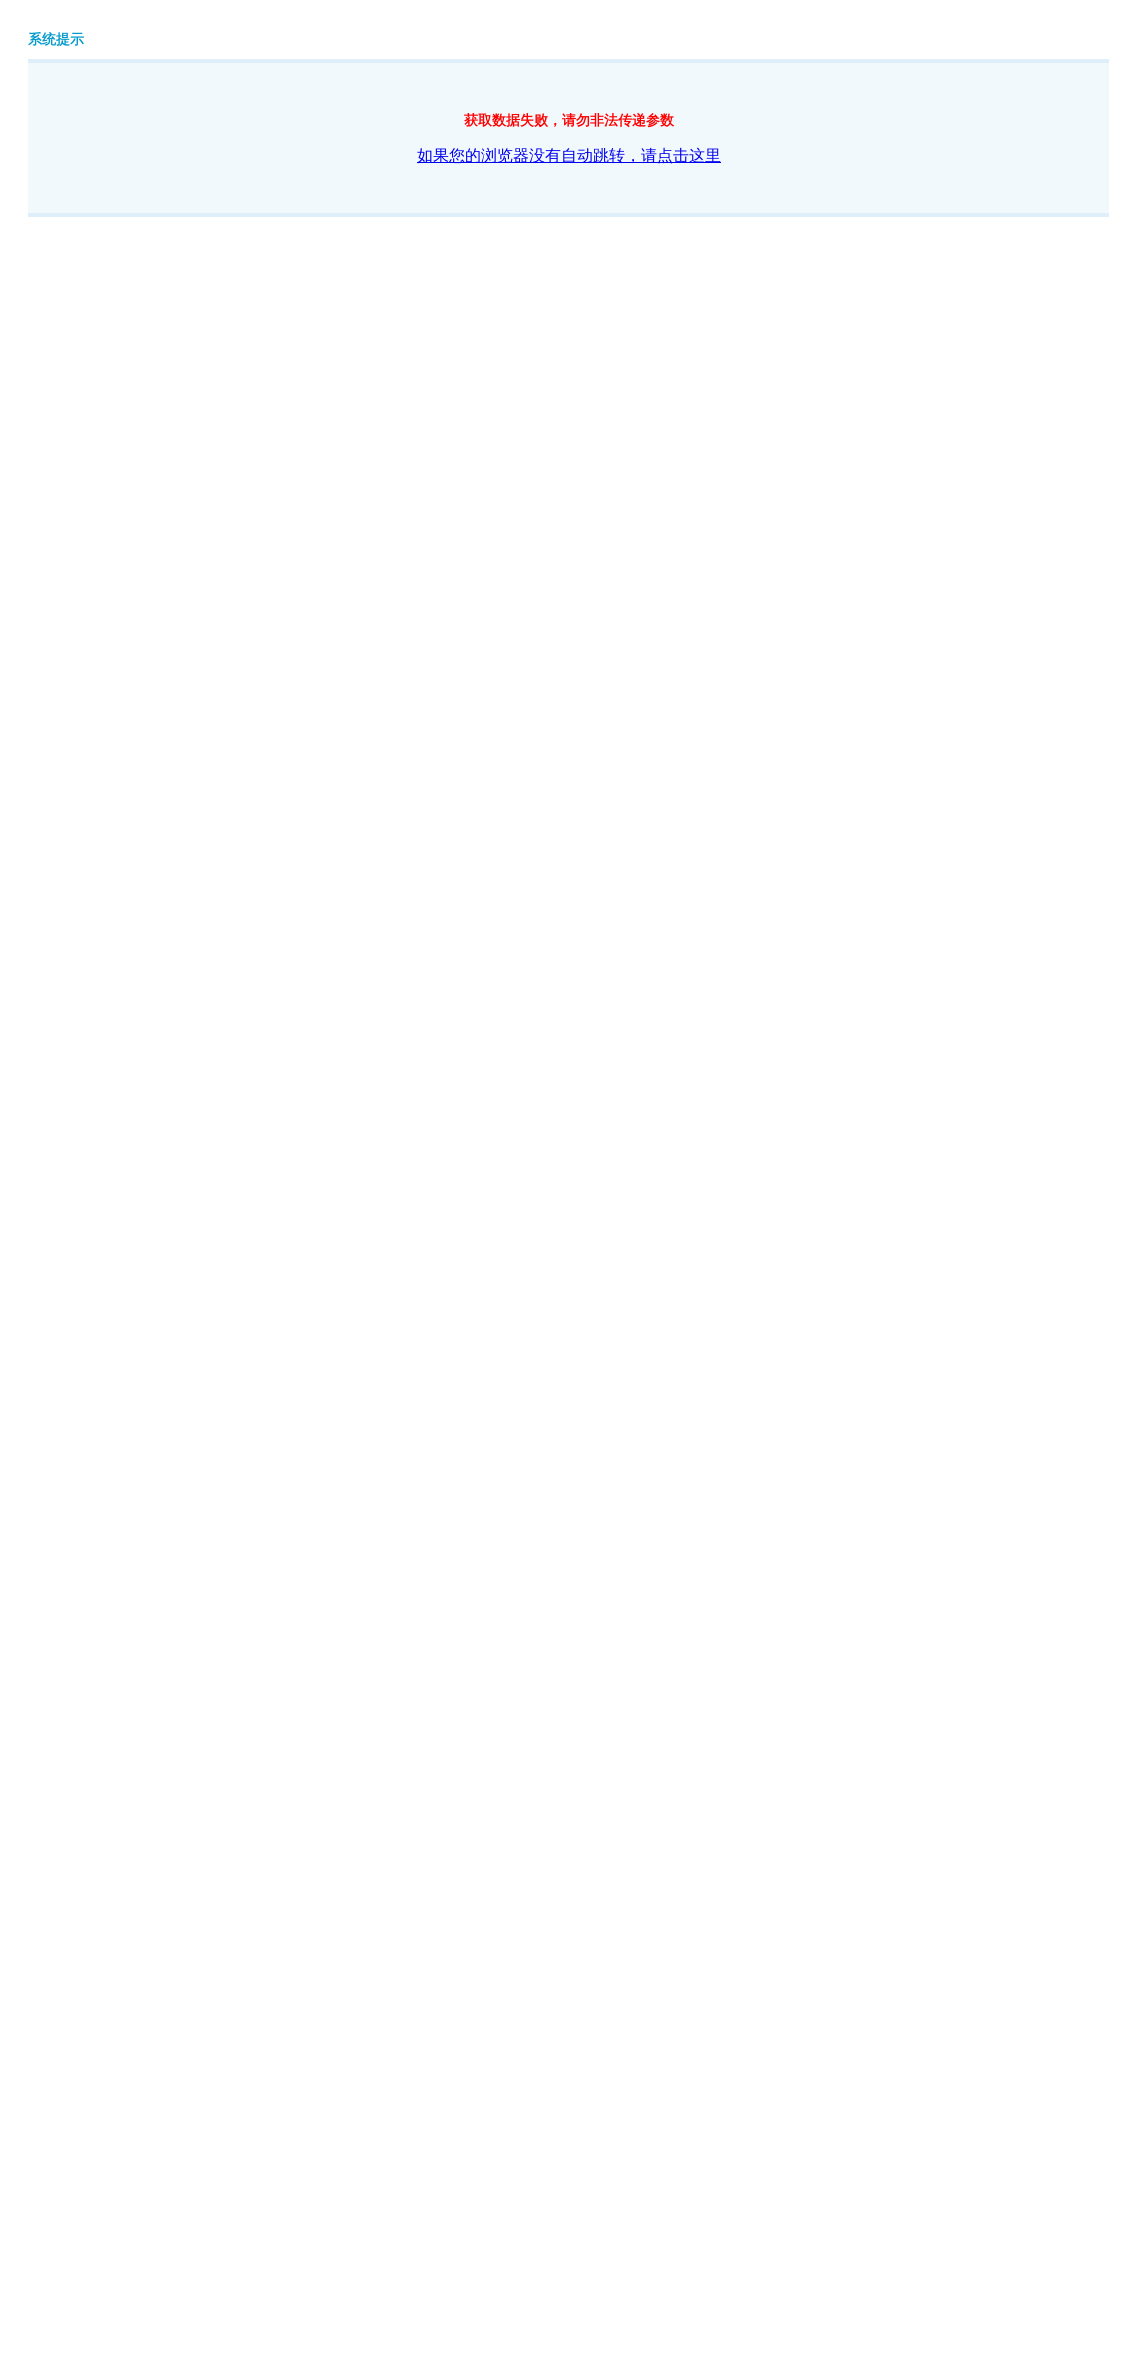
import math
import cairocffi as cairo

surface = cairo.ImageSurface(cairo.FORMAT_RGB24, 1137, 2380)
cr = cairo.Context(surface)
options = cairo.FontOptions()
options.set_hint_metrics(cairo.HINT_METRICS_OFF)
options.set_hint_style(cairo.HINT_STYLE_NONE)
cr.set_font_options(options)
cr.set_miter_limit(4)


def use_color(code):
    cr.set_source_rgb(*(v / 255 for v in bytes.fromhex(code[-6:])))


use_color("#ffffff")
cr.paint()
cr.select_font_face("WenQuanYi Zen Hei", cairo.FONT_SLANT_NORMAL, cairo.FONT_WEIGHT_BOLD)
cr.set_font_size(14)
use_color("#0099cc")
cr.move_to(28, 44)
cr.show_text("系统提示")
use_color("#f2f9fd")
cr.rectangle(28, 63, 1081, 150)
cr.fill()
use_color("#deeffa")
cr.rectangle(28, 59, 1081, 4)
cr.fill()
use_color("#deeefa")
cr.rectangle(28, 213, 1081, 4)
cr.fill()
use_color("#ff0000")
cr.move_to(464, 125)
cr.show_text("获取数据失败，请勿非法传递参数")
use_color("#0000ee")
cr.rectangle(417, 162, 304, 1)
cr.fill()
cr.select_font_face("WenQuanYi Zen Hei Medium")
cr.set_font_size(16)
cr.move_to(417, 161)
cr.show_text("如果您的浏览器没有自动跳转，请点击这里")
surface.write_to_png("result.png")
